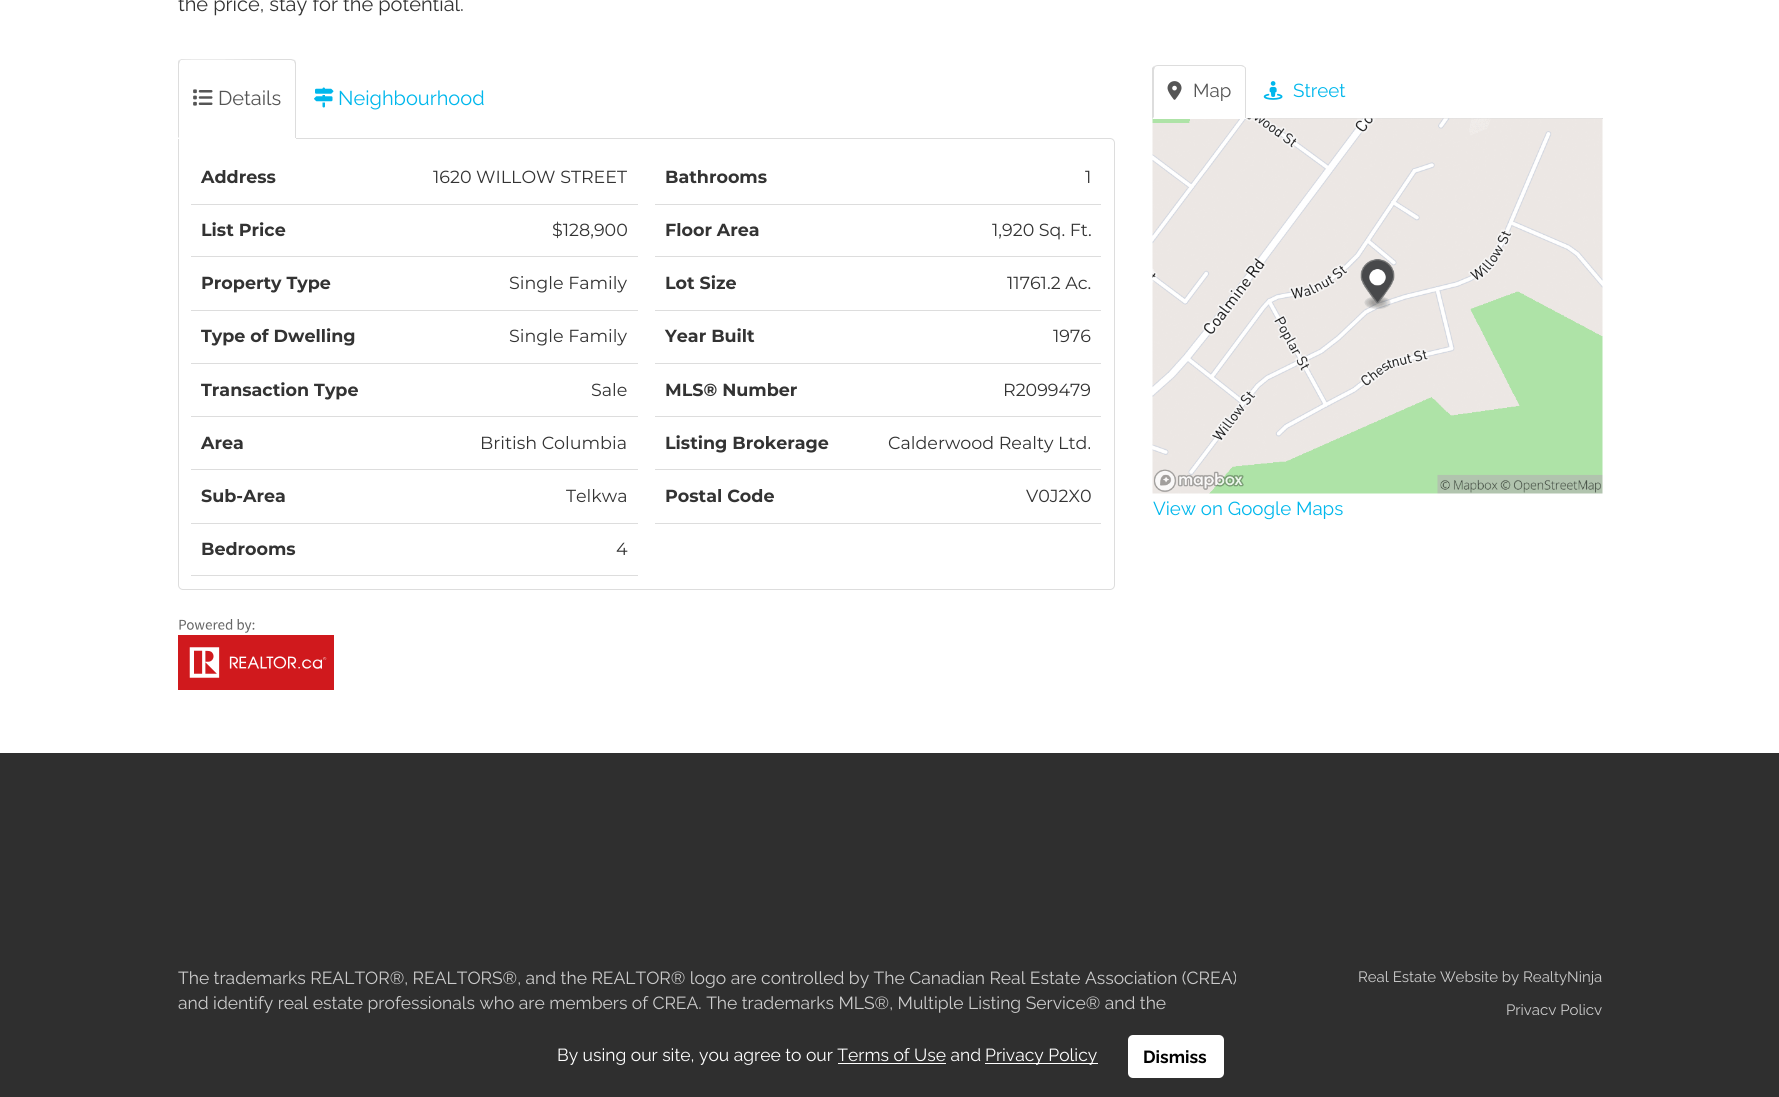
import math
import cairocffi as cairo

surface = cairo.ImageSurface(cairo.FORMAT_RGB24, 1779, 1097)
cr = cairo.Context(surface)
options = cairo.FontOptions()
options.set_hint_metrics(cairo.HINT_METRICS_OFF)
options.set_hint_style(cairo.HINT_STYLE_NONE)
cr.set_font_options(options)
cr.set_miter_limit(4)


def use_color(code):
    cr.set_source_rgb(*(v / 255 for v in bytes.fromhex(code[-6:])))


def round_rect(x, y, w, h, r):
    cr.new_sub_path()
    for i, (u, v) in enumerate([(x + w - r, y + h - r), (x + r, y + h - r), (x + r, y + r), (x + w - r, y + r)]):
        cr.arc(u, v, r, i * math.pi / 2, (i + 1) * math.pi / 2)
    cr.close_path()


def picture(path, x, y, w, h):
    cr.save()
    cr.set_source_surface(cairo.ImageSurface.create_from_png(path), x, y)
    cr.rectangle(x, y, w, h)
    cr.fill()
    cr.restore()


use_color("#ffffff")
cr.paint()
cr.select_font_face("Raleway")
cr.set_font_size(20)
use_color("#333333")
cr.move_to(178, 11)
cr.show_text("the price, stay for the potential.")
cr.new_path()
cr.move_to(178.5, 138.5)
cr.line_to(1110, 138.5)
cr.curve_to(1112.5, 138.5, 1114.5, 140.5, 1114.5, 143)
cr.line_to(1114.5, 585)
cr.curve_to(1114.5, 587.5, 1112.5, 589.5, 1110, 589.5)
cr.line_to(183, 589.5)
cr.curve_to(180.5, 589.5, 178.5, 587.5, 178.5, 585)
cr.close_path()
use_color("#dddddd")
cr.set_line_width(1)
cr.stroke()
use_color("#ffffff")
cr.new_path()
cr.move_to(183, 59)
cr.line_to(291, 59)
cr.curve_to(294, 59, 296, 61, 296, 64)
cr.line_to(296, 139)
cr.line_to(178, 139)
cr.line_to(178, 64)
cr.curve_to(178, 61, 180, 59, 183, 59)
cr.close_path()
cr.fill()
use_color("#dddddd")
cr.new_path()
cr.move_to(182, 59)
cr.curve_to(181, 59, 180, 60, 179, 60)
cr.line_to(180, 61)
cr.line_to(181, 60)
cr.curve_to(182, 59, 264, 60, 273, 60)
cr.line_to(291, 60)
cr.line_to(294, 61)
cr.line_to(295, 60)
cr.curve_to(294, 60, 292, 59, 291, 59)
cr.close_path()
cr.fill()
cr.new_path()
cr.move_to(296, 138)
cr.line_to(296, 63)
cr.line_to(295, 60)
cr.line_to(294, 61)
cr.line_to(295, 64)
cr.line_to(295, 138)
cr.close_path()
cr.fill()
cr.new_path()
cr.move_to(179, 60)
cr.curve_to(178, 61, 178, 63, 178, 64)
cr.line_to(178, 138)
cr.line_to(179, 137)
cr.line_to(179, 64)
cr.line_to(180, 61)
cr.close_path()
cr.fill()
picture("img1.png", 193, 89, 20, 17)
use_color("#555555")
cr.move_to(218, 105)
cr.show_text("Details")
picture("img2.png", 314, 87, 20, 21)
use_color("#00b7ec")
cr.move_to(338, 105)
cr.show_text("Neighbourhood")
use_color("#dddddd")
cr.rectangle(191, 204, 447, 1)
cr.fill()
cr.select_font_face("Montserrat", cairo.FONT_SLANT_NORMAL, cairo.FONT_WEIGHT_BOLD)
cr.set_font_size(17.5)
use_color("#333333")
cr.move_to(201, 183)
cr.show_text("Address")
cr.select_font_face("Montserrat Thin")
cr.move_to(433, 183)
cr.show_text("1620 WILLOW STREET")
use_color("#dddddd")
cr.rectangle(655, 204, 446, 1)
cr.fill()
cr.select_font_face("Montserrat", cairo.FONT_SLANT_NORMAL, cairo.FONT_WEIGHT_BOLD)
use_color("#333333")
cr.move_to(665, 183)
cr.show_text("Bathrooms")
cr.select_font_face("Montserrat Thin")
cr.move_to(1085, 183)
cr.show_text("1")
use_color("#dddddd")
cr.rectangle(191, 256, 447, 1)
cr.fill()
cr.select_font_face("Montserrat", cairo.FONT_SLANT_NORMAL, cairo.FONT_WEIGHT_BOLD)
use_color("#333333")
cr.move_to(201, 236)
cr.show_text("List Price")
cr.select_font_face("Montserrat Thin")
cr.move_to(552, 236)
cr.show_text("$128,900")
use_color("#dddddd")
cr.rectangle(655, 256, 446, 1)
cr.fill()
cr.select_font_face("Montserrat", cairo.FONT_SLANT_NORMAL, cairo.FONT_WEIGHT_BOLD)
use_color("#333333")
cr.move_to(665, 236)
cr.show_text("Floor Area")
cr.select_font_face("Montserrat Thin")
cr.move_to(992, 236)
cr.show_text("1,920 Sq. Ft.")
use_color("#dddddd")
cr.rectangle(191, 310, 447, 1)
cr.fill()
cr.select_font_face("Montserrat", cairo.FONT_SLANT_NORMAL, cairo.FONT_WEIGHT_BOLD)
use_color("#333333")
cr.move_to(201, 289)
cr.show_text("Property Type")
cr.select_font_face("Montserrat Thin")
cr.move_to(509, 289)
cr.show_text("Single Family")
use_color("#dddddd")
cr.rectangle(655, 310, 446, 1)
cr.fill()
cr.select_font_face("Montserrat", cairo.FONT_SLANT_NORMAL, cairo.FONT_WEIGHT_BOLD)
use_color("#333333")
cr.move_to(665, 289)
cr.show_text("Lot Size")
cr.select_font_face("Montserrat Thin")
cr.move_to(1007, 289)
cr.show_text("11761.2 Ac.")
use_color("#dddddd")
cr.rectangle(191, 363, 447, 1)
cr.fill()
cr.select_font_face("Montserrat", cairo.FONT_SLANT_NORMAL, cairo.FONT_WEIGHT_BOLD)
use_color("#333333")
cr.move_to(201, 342)
cr.show_text("Type of Dwelling")
cr.select_font_face("Montserrat Thin")
cr.move_to(509, 342)
cr.show_text("Single Family")
use_color("#dddddd")
cr.rectangle(655, 363, 446, 1)
cr.fill()
cr.select_font_face("Montserrat", cairo.FONT_SLANT_NORMAL, cairo.FONT_WEIGHT_BOLD)
use_color("#333333")
cr.move_to(665, 342)
cr.show_text("Year Built")
cr.select_font_face("Montserrat Thin")
cr.move_to(1053, 342)
cr.show_text("1976")
use_color("#dddddd")
cr.rectangle(191, 416, 447, 1)
cr.fill()
cr.select_font_face("Montserrat", cairo.FONT_SLANT_NORMAL, cairo.FONT_WEIGHT_BOLD)
use_color("#333333")
cr.move_to(201, 396)
cr.show_text("Transaction Type")
cr.select_font_face("Montserrat Thin")
cr.move_to(591, 396)
cr.show_text("Sale")
use_color("#dddddd")
cr.rectangle(655, 416, 446, 1)
cr.fill()
cr.select_font_face("Montserrat", cairo.FONT_SLANT_NORMAL, cairo.FONT_WEIGHT_BOLD)
use_color("#333333")
cr.move_to(665, 396)
cr.show_text("MLS® Number")
cr.select_font_face("Montserrat Thin")
cr.move_to(1003, 396)
cr.show_text("R2099479")
use_color("#dddddd")
cr.rectangle(191, 469, 447, 1)
cr.fill()
cr.select_font_face("Montserrat", cairo.FONT_SLANT_NORMAL, cairo.FONT_WEIGHT_BOLD)
use_color("#333333")
cr.move_to(201, 449)
cr.show_text("Area")
cr.select_font_face("Montserrat Thin")
cr.move_to(480, 449)
cr.show_text("British Columbia")
use_color("#dddddd")
cr.rectangle(655, 469, 446, 1)
cr.fill()
cr.select_font_face("Montserrat", cairo.FONT_SLANT_NORMAL, cairo.FONT_WEIGHT_BOLD)
use_color("#333333")
cr.move_to(665, 449)
cr.show_text("Listing Brokerage")
cr.select_font_face("Montserrat Thin")
cr.move_to(888, 449)
cr.show_text("Calderwood Realty Ltd.")
use_color("#dddddd")
cr.rectangle(191, 523, 447, 1)
cr.fill()
cr.select_font_face("Montserrat", cairo.FONT_SLANT_NORMAL, cairo.FONT_WEIGHT_BOLD)
use_color("#333333")
cr.move_to(201, 502)
cr.show_text("Sub-Area")
cr.select_font_face("Montserrat Thin")
cr.move_to(566, 502)
cr.show_text("Telkwa")
use_color("#dddddd")
cr.rectangle(655, 523, 446, 1)
cr.fill()
cr.select_font_face("Montserrat", cairo.FONT_SLANT_NORMAL, cairo.FONT_WEIGHT_BOLD)
use_color("#333333")
cr.move_to(665, 502)
cr.show_text("Postal Code")
cr.select_font_face("Montserrat Thin")
cr.move_to(1026, 502)
cr.show_text("V0J2X0")
use_color("#dddddd")
cr.rectangle(191, 575, 447, 1)
cr.fill()
cr.select_font_face("Montserrat", cairo.FONT_SLANT_NORMAL, cairo.FONT_WEIGHT_BOLD)
use_color("#333333")
cr.move_to(201, 555)
cr.show_text("Bedrooms")
cr.select_font_face("Montserrat Thin")
cr.move_to(616, 555)
cr.show_text("4")
picture("img3.png", 178, 619, 156, 71)
use_color("#dddddd")
cr.rectangle(1246, 118, 357, 1)
cr.fill()
picture("img6.png", 1152, 118, 451, 376)
use_color("#ffffff")
cr.new_path()
cr.move_to(1158, 65)
cr.line_to(1241, 65)
cr.curve_to(1244, 65, 1246, 67, 1246, 70)
cr.line_to(1246, 119)
cr.line_to(1153, 119)
cr.line_to(1153, 70)
cr.curve_to(1153, 67, 1155, 65, 1158, 65)
cr.close_path()
cr.fill()
use_color("#dddddd")
cr.new_path()
cr.move_to(1158, 65)
cr.curve_to(1156, 65, 1155, 66, 1154, 66)
cr.line_to(1155, 67)
cr.curve_to(1155, 67, 1156, 66, 1158, 66)
cr.line_to(1241, 66)
cr.curve_to(1242, 66, 1243, 67, 1244, 67)
cr.line_to(1245, 67)
cr.curve_to(1244, 66, 1243, 65, 1241, 65)
cr.close_path()
cr.fill()
cr.new_path()
cr.move_to(1245, 67)
cr.curve_to(1246, 67, 1246, 69, 1246, 70)
cr.line_to(1246, 118)
cr.line_to(1245, 118)
cr.line_to(1245, 70)
cr.curve_to(1245, 69, 1245, 68, 1244, 67)
cr.close_path()
cr.fill()
cr.new_path()
cr.move_to(1152, 119)
cr.line_to(1152, 68)
cr.line_to(1154, 66)
cr.line_to(1155, 67)
cr.line_to(1154, 70)
cr.line_to(1154, 117)
cr.close_path()
cr.fill()
picture("img4.png", 1167, 81, 15, 19)
cr.select_font_face("Raleway")
cr.set_font_size(18.75)
use_color("#555555")
cr.move_to(1193, 97)
cr.show_text("Map")
picture("img5.png", 1263, 81, 20, 19)
use_color("#00b7ec")
cr.move_to(1293, 97)
cr.show_text("Street")
cr.move_to(1153, 515)
cr.show_text("View on Google Maps")
use_color("#2f2f2f")
cr.rectangle(0, 753, 1779, 262)
cr.fill()
cr.set_font_size(17.5)
use_color("#cccccc")
cr.move_to(178, 984)
cr.show_text("The trademarks REALTOR®, REALTORS®, and the REALTOR® logo are controlled by The Canadian Real Estate Association (CREA)")
cr.move_to(178, 1009)
cr.show_text("and identify real estate professionals who are members of CREA. The trademarks MLS®, Multiple Listing Service® and the")
cr.set_font_size(15)
cr.move_to(1358, 982)
cr.show_text("Real Estate Website by RealtyNinja")
cr.move_to(1506, 1015)
cr.show_text("Privacy Policy")
use_color("#2f2f2f")
cr.rectangle(0, 1015, 1779, 82)
cr.fill()
cr.set_font_size(17.5)
use_color("#ffffff")
cr.move_to(557, 1061)
cr.show_text("By using our site, you agree to our Terms of Use and")
cr.rectangle(985, 1063, 113, 1)
cr.fill()
cr.move_to(985, 1061)
cr.show_text("Privacy Policy")
round_rect(1128, 1035, 96, 43, 5)
cr.fill()
cr.select_font_face("Raleway", cairo.FONT_SLANT_NORMAL, cairo.FONT_WEIGHT_BOLD)
use_color("#000000")
cr.move_to(1143, 1063)
cr.show_text("Dismiss")
use_color("#ffffff")
cr.rectangle(838, 1063, 108, 1)
cr.fill()
surface.write_to_png("result.png")
